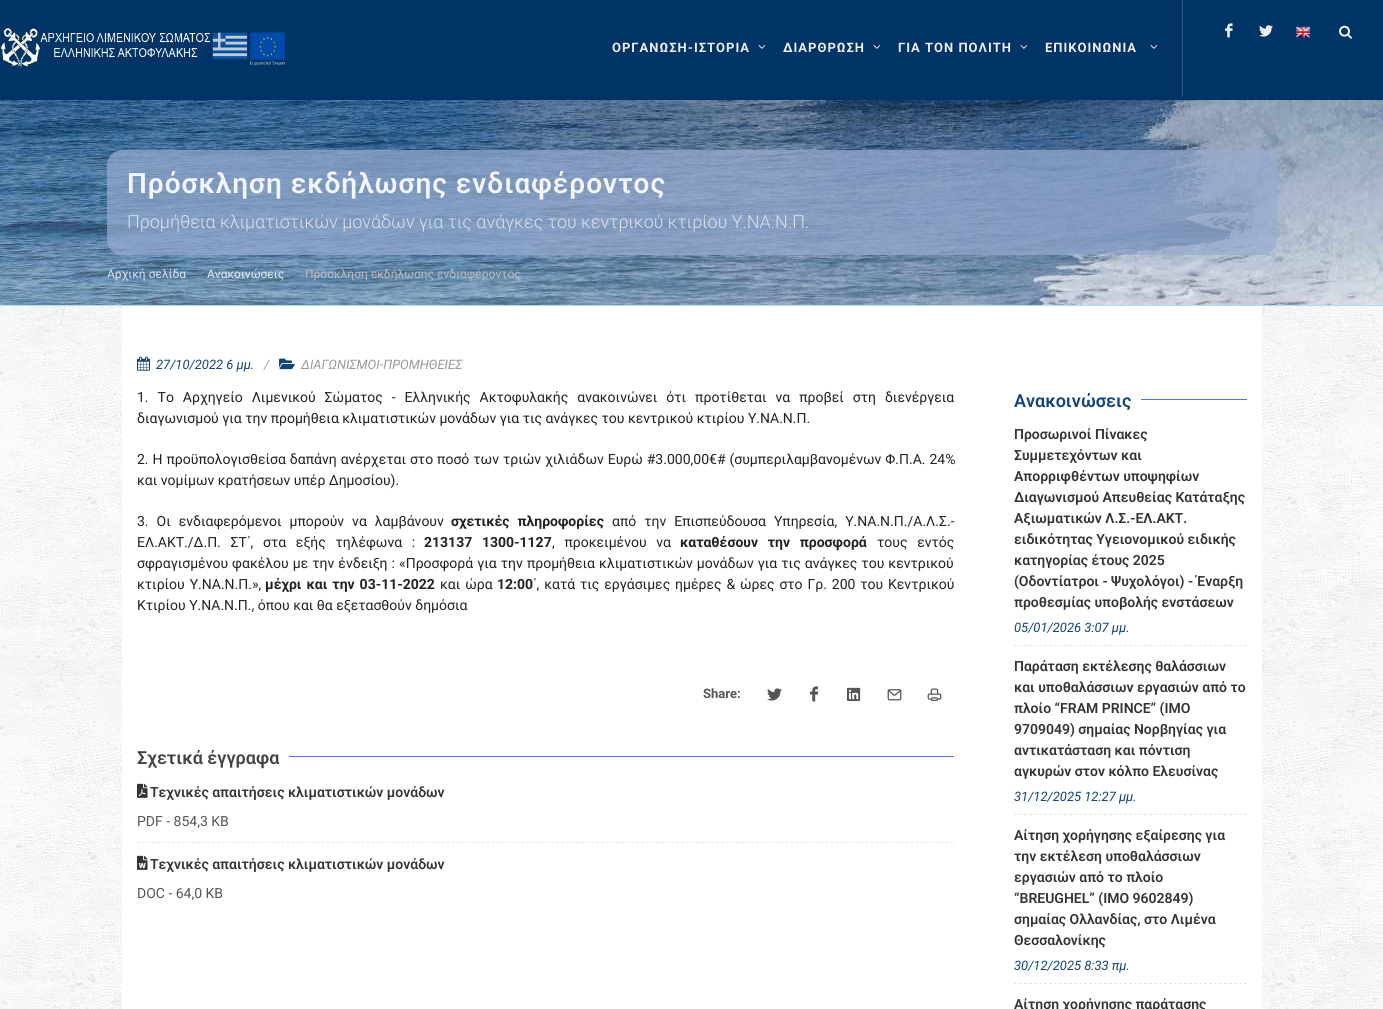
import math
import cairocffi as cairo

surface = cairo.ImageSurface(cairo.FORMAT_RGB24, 1383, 1009)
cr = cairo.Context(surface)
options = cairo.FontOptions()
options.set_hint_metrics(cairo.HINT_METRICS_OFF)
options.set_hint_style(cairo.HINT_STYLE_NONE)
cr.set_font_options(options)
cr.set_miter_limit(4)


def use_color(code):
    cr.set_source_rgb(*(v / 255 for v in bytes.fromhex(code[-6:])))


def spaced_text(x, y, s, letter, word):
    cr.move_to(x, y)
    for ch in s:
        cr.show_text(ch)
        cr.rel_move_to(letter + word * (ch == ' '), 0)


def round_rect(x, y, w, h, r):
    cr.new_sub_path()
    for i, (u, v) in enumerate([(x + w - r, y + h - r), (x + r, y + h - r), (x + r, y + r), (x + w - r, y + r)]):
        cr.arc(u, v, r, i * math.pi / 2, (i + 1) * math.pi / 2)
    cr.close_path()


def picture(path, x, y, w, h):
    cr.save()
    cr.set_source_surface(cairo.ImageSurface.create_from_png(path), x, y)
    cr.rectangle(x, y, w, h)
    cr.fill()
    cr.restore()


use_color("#ffffff")
cr.paint()
picture("img1.png", 0, 306, 1383, 703)
use_color("#003366")
cr.rectangle(0, 0, 1383, 100)
cr.fill()
picture("img2.png", 1, 28, 284, 41)
picture("img3.png", 1225, 23, 8, 15)
picture("img4.png", 1259, 25, 14, 12)
picture("img5.png", 1295, 26, 16, 12)
picture("img6.png", 1339, 25, 13, 14)
use_color("#335c85")
cr.rectangle(1182, 0, 1, 96)
cr.fill()
cr.select_font_face("Roboto", cairo.FONT_SLANT_NORMAL, cairo.FONT_WEIGHT_BOLD)
cr.set_font_size(13)
use_color("#eeeeee")
spaced_text(612, 52, "ΟΡΓΑΝΩΣΗ-ΙΣΤΟΡΙΑ", 1, 0)
picture("img7.png", 758, 45, 8, 4)
spaced_text(783, 52, "ΔΙΑΡΘΡΩΣΗ", 1, 0)
picture("img7.png", 873, 45, 8, 4)
spaced_text(898, 52, "ΓΙΑ ΤΟΝ ΠΟΛΙΤΗ", 1, 0)
picture("img7.png", 1020, 45, 8, 4)
spaced_text(1045, 52, "ΕΠΙΚΟΙΝΩΝΙΑ", 1, 0)
picture("img7.png", 1150, 45, 8, 4)
picture("img8.png", 0, 100, 1383, 205)
use_color("#aaddf8")
cr.rectangle(0, 305, 1383, 1)
cr.fill()
cr.set_source_rgba(0.596, 0.671, 0.816, 0.7)
round_rect(107, 150, 1170, 105, 15)
cr.fill()
cr.select_font_face("Roboto SemiBold")
cr.set_font_size(28)
use_color("#f2f5f9")
spaced_text(127, 193, "Πρόσκληση εκδήλωσης ενδιαφέροντος", 1, 0)
cr.select_font_face("Roboto Light")
cr.set_font_size(18)
use_color("#dae1ec")
cr.move_to(127, 228)
cr.show_text("Προμήθεια κλιματιστικών μονάδων για τις ανάγκες του κεντρικού κτιρίου Υ.ΝΑ.Ν.Π.")
cr.select_font_face("Roboto")
cr.set_font_size(12)
cr.move_to(107, 278)
cr.show_text("Αρχική σελίδα")
use_color("#e0e8ee")
cr.move_to(207, 278)
cr.show_text("Ανακοινώσεις")
use_color("#bbbbbb")
cr.move_to(305, 278)
cr.show_text("Πρόσκληση εκδήλωσης ενδιαφέροντος")
use_color("#ffffff")
cr.rectangle(122, 306, 1140, 703)
cr.fill()
picture("img9.png", 137, 356, 13, 15)
cr.select_font_face("Roboto", cairo.FONT_SLANT_ITALIC)
cr.set_font_size(13)
use_color("#114477")
cr.move_to(156, 369)
cr.show_text("27/10/2022 6 μμ.")
use_color("#88a2bb")
cr.move_to(264, 369)
cr.show_text("/")
picture("img10.png", 279, 358, 16, 12)
use_color("#999999")
cr.move_to(301, 369)
cr.show_text("ΔΙΑΓΩΝΙΣΜΟΙ-ΠΡΟΜΗΘΕΙΕΣ")
cr.select_font_face("Roboto")
cr.set_font_size(14)
use_color("#222222")
spaced_text(137, 402, "1. Το Αρχηγείο Λιμενικού Σώματος - Ελληνικής Ακτοφυλακής ανακοινώνει ότι προτίθεται να προβεί στη διενέργεια", 0, 5.5)
cr.move_to(137, 423)
cr.show_text("διαγωνισμού για την προμήθεια κλιματιστικών μονάδων για τις ανάγκες του κεντρικού κτιρίου Υ.ΝΑ.Ν.Π.")
spaced_text(137, 464, "2. Η προϋπολογισθείσα δαπάνη ανέρχεται στο ποσό των τριών χιλιάδων Ευρώ #3.000,00€# (συμπεριλαμβανομένων Φ.Π.Α. 24%", 0, 0.5)
cr.move_to(137, 485)
cr.show_text("και νομίμων κρατήσεων υπέρ Δημοσίου).")
spaced_text(137, 526, "3. Οι ενδιαφερόμενοι μπορούν να λαμβάνουν", 0, 4.5)
cr.select_font_face("Roboto", cairo.FONT_SLANT_NORMAL, cairo.FONT_WEIGHT_BOLD)
spaced_text(451, 526, "σχετικές πληροφορίες", 0, 4.5)
cr.select_font_face("Roboto")
spaced_text(612, 526, "από την Επισπεύδουσα Υπηρεσία, Υ.ΝΑ.Ν.Π./Α.Λ.Σ.-", 0, 4.5)
spaced_text(137, 547, "ΕΛ.ΑΚΤ./Δ.Π. ΣΤ΄, στα εξής τηλέφωνα :", 0, 6.25)
cr.select_font_face("Roboto", cairo.FONT_SLANT_NORMAL, cairo.FONT_WEIGHT_BOLD)
spaced_text(424, 547, "213137 1300-1127", 0, 6.25)
cr.select_font_face("Roboto")
spaced_text(552, 547, ", προκειμένου να", 0, 6.25)
cr.select_font_face("Roboto", cairo.FONT_SLANT_NORMAL, cairo.FONT_WEIGHT_BOLD)
spaced_text(680, 547, "καταθέσουν την προσφορά", 0, 6.25)
cr.select_font_face("Roboto")
spaced_text(877, 547, "τους εντός", 0, 6.25)
spaced_text(137, 568, "σφραγισμένου φακέλου με την ένδειξη : «Προσφορά για την προμήθεια κλιματιστικών μονάδων για τις ανάγκες του κεντρικού", 0, 0.6)
spaced_text(137, 589, "κτιρίου Υ.ΝΑ.Ν.Π.»,", 0, 1.5)
cr.select_font_face("Roboto", cairo.FONT_SLANT_NORMAL, cairo.FONT_WEIGHT_BOLD)
spaced_text(265, 589, "μέχρι και την 03-11-2022", 0, 1.5)
cr.select_font_face("Roboto")
spaced_text(440, 589, "και ώρα", 0, 1.5)
cr.select_font_face("Roboto", cairo.FONT_SLANT_NORMAL, cairo.FONT_WEIGHT_BOLD)
cr.move_to(497, 589)
cr.show_text("12:00")
cr.select_font_face("Roboto")
spaced_text(533, 589, "΄, κατά τις εργάσιμες ημέρες & ώρες στο Γρ. 200 του Κεντρικού", 0, 1.4)
cr.move_to(137, 610)
cr.show_text("Κτιρίου Υ.ΝΑ.Ν.Π., όπου και θα εξετασθούν δημόσια")
cr.select_font_face("Roboto", cairo.FONT_SLANT_NORMAL, cairo.FONT_WEIGHT_BOLD)
cr.set_font_size(13)
use_color("#555555")
cr.move_to(703, 698)
cr.show_text("Share:")
picture("img11.png", 767, 688, 15, 13)
picture("img12.png", 810, 686, 9, 16)
picture("img13.png", 847, 687, 14, 14)
picture("img14.png", 887, 689, 15, 12)
picture("img15.png", 927, 688, 15, 13)
cr.select_font_face("Roboto SemiBold")
cr.set_font_size(18)
use_color("#444444")
cr.move_to(137, 764)
cr.show_text("Σχετικά έγγραφα")
use_color("#5271f1")
cr.rectangle(289, 756, 665, 1)
cr.fill()
picture("img16.png", 137, 783, 11, 15)
cr.set_font_size(14)
use_color("#333333")
cr.move_to(150, 797)
cr.show_text("Τεχνικές απαιτήσεις κλιματιστικών μονάδων")
cr.select_font_face("Roboto")
use_color("#555555")
cr.move_to(137, 826)
cr.show_text("PDF - 854,3 KB")
cr.new_path()
cr.move_to(137, 842.5)
cr.line_to(954, 842.5)
use_color("#e5e5e5")
cr.set_line_width(1)
cr.set_dash([3, 1.99])
cr.stroke()
picture("img17.png", 137, 855, 11, 15)
cr.select_font_face("Roboto SemiBold")
use_color("#333333")
cr.move_to(150, 869)
cr.show_text("Τεχνικές απαιτήσεις κλιματιστικών μονάδων")
cr.select_font_face("Roboto")
use_color("#555555")
cr.move_to(137, 898)
cr.show_text("DOC - 64,0 KB")
cr.select_font_face("Roboto SemiBold")
cr.set_font_size(18)
use_color("#114477")
cr.move_to(1014, 407)
cr.show_text("Ανακοινώσεις")
use_color("#5271f1")
cr.rectangle(1141, 399, 106, 1)
cr.fill()
cr.set_font_size(14)
use_color("#333333")
cr.move_to(1014, 439)
cr.show_text("Προσωρινοί Πίνακες")
cr.move_to(1014, 460)
cr.show_text("Συμμετεχόντων και")
cr.move_to(1014, 481)
cr.show_text("Απορριφθέντων υποψηφίων")
cr.move_to(1014, 502)
cr.show_text("Διαγωνισμού Απευθείας Κατάταξης")
cr.move_to(1014, 523)
cr.show_text("Αξιωματικών Λ.Σ.-ΕΛ.ΑΚΤ.")
cr.move_to(1014, 544)
cr.show_text("ειδικότητας Υγειονομικού ειδικής")
cr.move_to(1014, 565)
cr.show_text("κατηγορίας έτους 2025")
cr.move_to(1014, 586)
cr.show_text("(Οδοντίατροι - Ψυχολόγοι) - Έναρξη")
cr.move_to(1014, 607)
cr.show_text("προθεσμίας υποβολής ενστάσεων")
cr.select_font_face("Roboto", cairo.FONT_SLANT_ITALIC)
cr.set_font_size(13)
use_color("#114477")
cr.move_to(1014, 632)
cr.show_text("05/01/2026 3:07 μμ.")
cr.new_path()
cr.move_to(1014, 645.5)
cr.line_to(1247, 645.5)
use_color("#e5e5e5")
cr.set_dash([3, 2])
cr.stroke()
cr.select_font_face("Roboto SemiBold")
cr.set_font_size(14)
use_color("#333333")
cr.move_to(1014, 671)
cr.show_text("Παράταση εκτέλεσης θαλάσσιων")
cr.move_to(1014, 692)
cr.show_text("και υποθαλάσσιων εργασιών από το")
cr.move_to(1014, 713)
cr.show_text("πλοίο “FRAM PRINCE” (IMO")
cr.move_to(1014, 734)
cr.show_text("9709049) σημαίας Νορβηγίας για")
cr.move_to(1014, 755)
cr.show_text("αντικατάσταση και πόντιση")
cr.move_to(1014, 776)
cr.show_text("αγκυρών στον κόλπο Ελευσίνας")
cr.select_font_face("Roboto", cairo.FONT_SLANT_ITALIC)
cr.set_font_size(13)
use_color("#114477")
cr.move_to(1014, 801)
cr.show_text("31/12/2025 12:27 μμ.")
cr.new_path()
cr.move_to(1014, 814.5)
cr.line_to(1247, 814.5)
use_color("#e5e5e5")
cr.stroke()
cr.select_font_face("Roboto SemiBold")
cr.set_font_size(14)
use_color("#333333")
cr.move_to(1014, 840)
cr.show_text("Αίτηση χορήγησης εξαίρεσης για")
cr.move_to(1014, 861)
cr.show_text("την εκτέλεση υποθαλάσσιων")
cr.move_to(1014, 882)
cr.show_text("εργασιών από το πλοίο")
cr.move_to(1014, 903)
cr.show_text("“BREUGHEL” (IMO 9602849)")
cr.move_to(1014, 924)
cr.show_text("σημαίας Ολλανδίας, στο Λιμένα")
cr.move_to(1014, 945)
cr.show_text("Θεσσαλονίκης")
cr.select_font_face("Roboto", cairo.FONT_SLANT_ITALIC)
cr.set_font_size(13)
use_color("#114477")
cr.move_to(1014, 970)
cr.show_text("30/12/2025 8:33 πμ.")
cr.new_path()
cr.move_to(1014, 983.5)
cr.line_to(1247, 983.5)
use_color("#e5e5e5")
cr.stroke()
cr.select_font_face("Roboto SemiBold")
cr.set_font_size(14)
use_color("#333333")
cr.move_to(1014, 1009)
cr.show_text("Αίτηση χορήγησης παράτασης")
surface.write_to_png("result.png")
